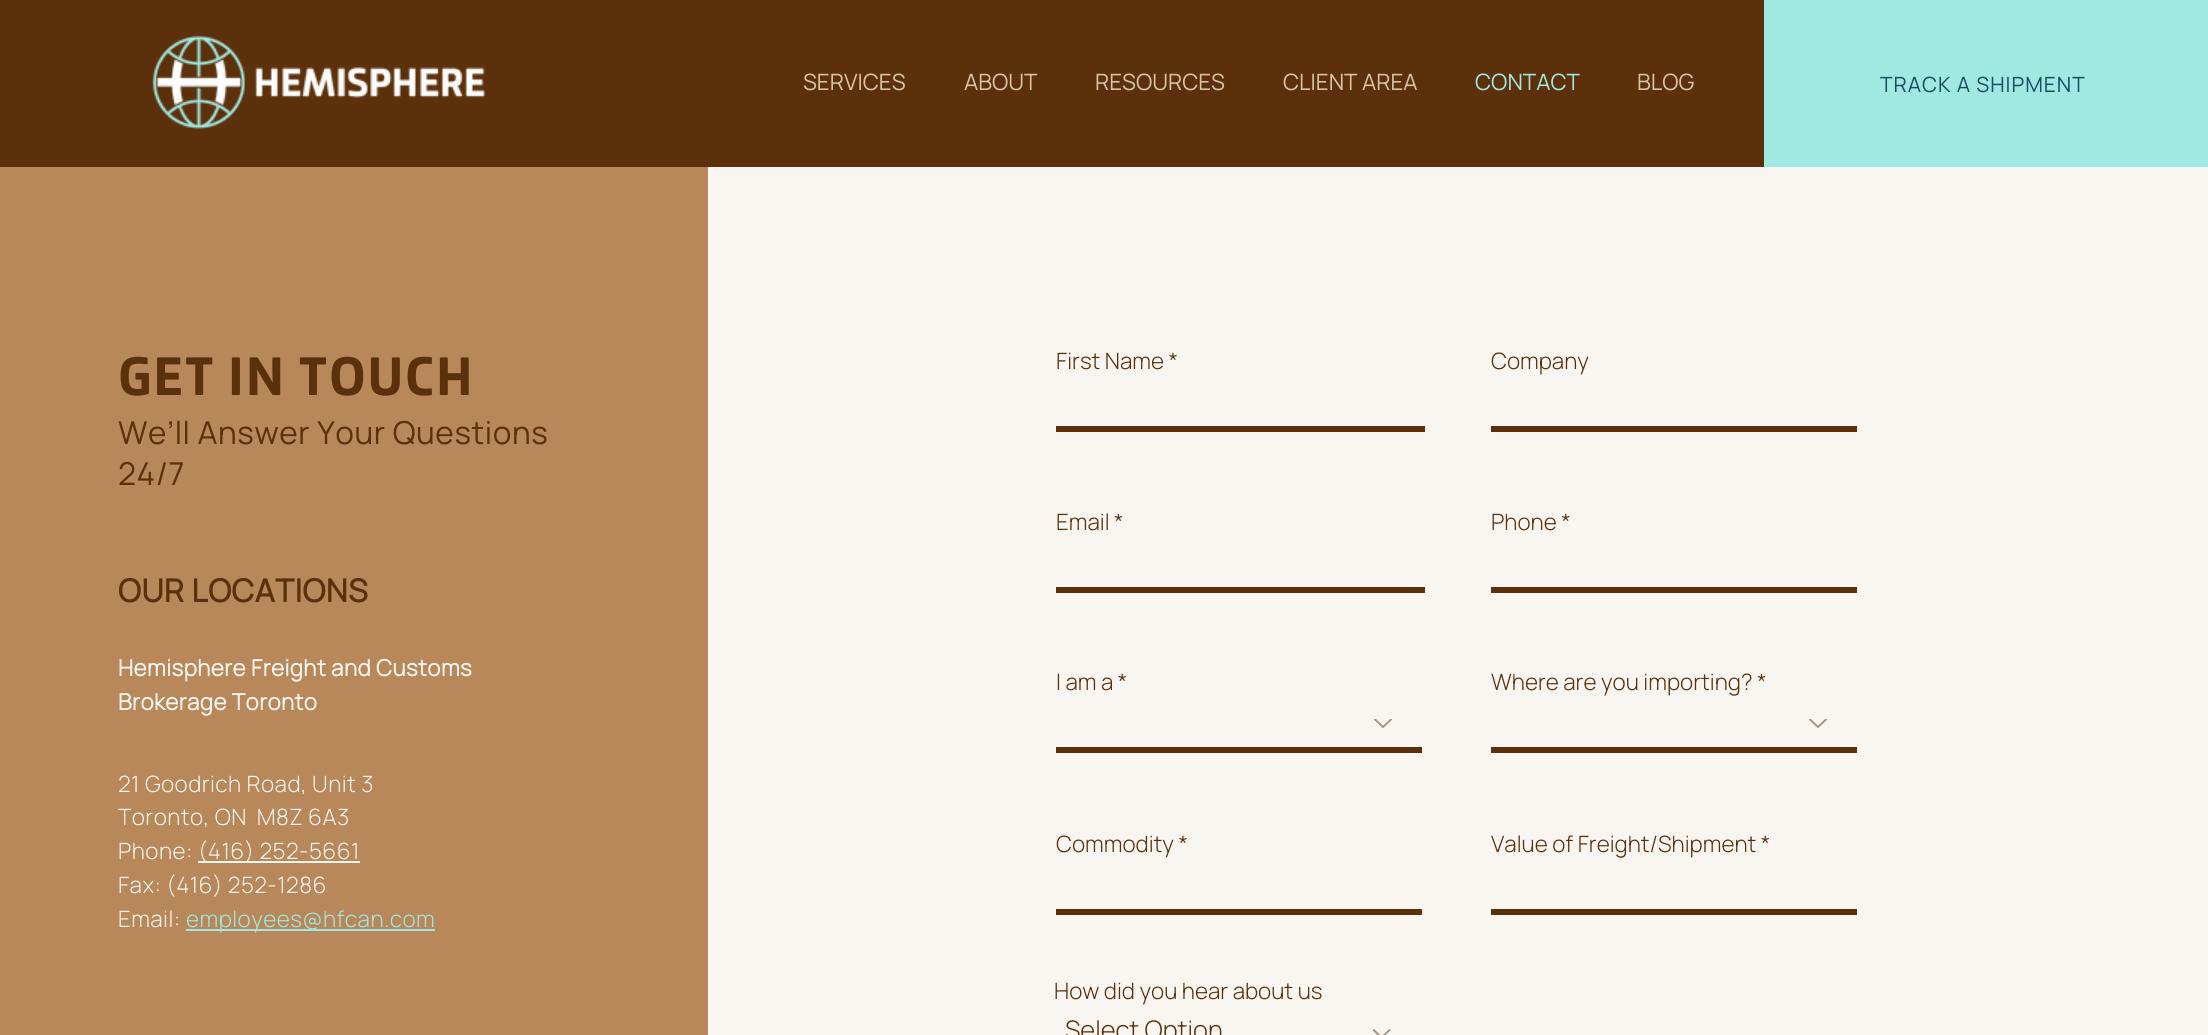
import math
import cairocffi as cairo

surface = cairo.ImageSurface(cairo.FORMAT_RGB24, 2208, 1035)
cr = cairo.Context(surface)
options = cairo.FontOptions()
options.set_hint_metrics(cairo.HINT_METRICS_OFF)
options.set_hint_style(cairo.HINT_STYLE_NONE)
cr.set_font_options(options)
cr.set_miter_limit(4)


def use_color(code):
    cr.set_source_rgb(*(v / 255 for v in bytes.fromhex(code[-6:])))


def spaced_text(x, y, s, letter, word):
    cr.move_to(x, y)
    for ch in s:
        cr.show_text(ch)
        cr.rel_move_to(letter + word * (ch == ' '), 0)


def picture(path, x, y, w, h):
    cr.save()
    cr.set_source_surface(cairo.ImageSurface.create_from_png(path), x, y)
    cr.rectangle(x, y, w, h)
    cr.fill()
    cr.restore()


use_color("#f9f5f1")
cr.paint()
use_color("#5b300b")
cr.rectangle(0, 0, 1764, 167)
cr.fill()
picture("img1.png", 152, 35, 333, 95)
cr.select_font_face("Manrope")
cr.set_font_size(22.5)
use_color("#d8c3a9")
cr.move_to(803, 90)
cr.show_text("SERVICES")
cr.move_to(964, 90)
cr.show_text("ABOUT")
cr.move_to(1095, 90)
cr.show_text("RESOURCES")
cr.move_to(1283, 90)
cr.show_text("CLIENT AREA")
use_color("#a0e8e1")
cr.move_to(1475, 90)
cr.show_text("CONTACT")
use_color("#d8c3a9")
cr.move_to(1637, 90)
cr.show_text("BLOG")
use_color("#a0e8e1")
cr.rectangle(1764, 0, 444, 167)
cr.fill()
cr.set_font_size(21)
use_color("#1a4d61")
spaced_text(1880, 92, "TRACK A SHIPMENT", 1, 0)
use_color("#b8875a")
cr.rectangle(0, 167, 708, 868)
cr.fill()
cr.select_font_face("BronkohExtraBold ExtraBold")
cr.set_font_size(57)
use_color("#5b300b")
spaced_text(118, 395, "GET IN TOUCH", 1.75, 0)
cr.select_font_face("Manrope")
cr.set_font_size(31.5)
spaced_text(118, 444, "We’ll Answer Your Questions", 0.6, 0)
spaced_text(118, 485, "24/7", 0.6, 0)
cr.select_font_face("Manrope", cairo.FONT_SLANT_NORMAL, cairo.FONT_WEIGHT_BOLD)
spaced_text(118, 602, "OUR LOCATIONS", 0.6, 0)
cr.select_font_face("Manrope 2", cairo.FONT_SLANT_NORMAL, cairo.FONT_WEIGHT_BOLD)
cr.set_font_size(22.5)
use_color("#f9f5f1")
spaced_text(118, 676, "Hemisphere Freight and Customs", 0.45, 0)
spaced_text(118, 710, "Brokerage Toronto", 0.45, 0)
cr.select_font_face("Manrope Light")
spaced_text(118, 792, "21 Goodrich Road, Unit 3", 0.45, 0)
spaced_text(118, 825, "Toronto, ON  M8Z 6A3", 0.45, 0)
spaced_text(118, 859, "Phone:", 0.45, 0)
cr.rectangle(198, 861, 162, 2)
cr.fill()
spaced_text(198, 859, "(416) 252-5661", 0.45, 0)
spaced_text(118, 893, "Fax: (416) 252-1286", 0.45, 0)
spaced_text(118, 927, "Email:", 0.45, 0)
use_color("#a0e8e1")
cr.rectangle(186, 929, 249, 2)
cr.fill()
spaced_text(186, 927, "employees@hfcan.com", 0.45, 0)
use_color("#5b300b")
cr.move_to(1056, 369)
cr.show_text("First Name *")
cr.rectangle(1056, 426, 369, 6)
cr.fill()
cr.move_to(1491, 369)
cr.show_text("Company")
cr.rectangle(1491, 426, 366, 6)
cr.fill()
cr.move_to(1056, 530)
cr.show_text("Email *")
cr.rectangle(1056, 587, 369, 6)
cr.fill()
cr.move_to(1491, 530)
cr.show_text("Phone *")
cr.rectangle(1491, 587, 366, 6)
cr.fill()
cr.move_to(1056, 690)
cr.show_text("I am a *")
picture("img2.png", 1374, 719, 18, 9)
cr.rectangle(1056, 747, 366, 6)
cr.fill()
cr.move_to(1491, 690)
cr.show_text("Where are you importing? *")
picture("img2.png", 1809, 719, 18, 9)
cr.rectangle(1491, 747, 366, 6)
cr.fill()
cr.move_to(1056, 852)
cr.show_text("Commodity *")
cr.rectangle(1056, 909, 366, 6)
cr.fill()
cr.move_to(1491, 852)
cr.show_text("Value of Freight/Shipment *")
cr.rectangle(1491, 909, 366, 6)
cr.fill()
cr.move_to(1054, 999)
cr.show_text("How did you hear about us")
cr.set_font_size(25.5)
cr.move_to(1065, 1039)
cr.show_text("Select Option")
picture("img3.png", 1373, 1029, 18, 6)
surface.write_to_png("result.png")
